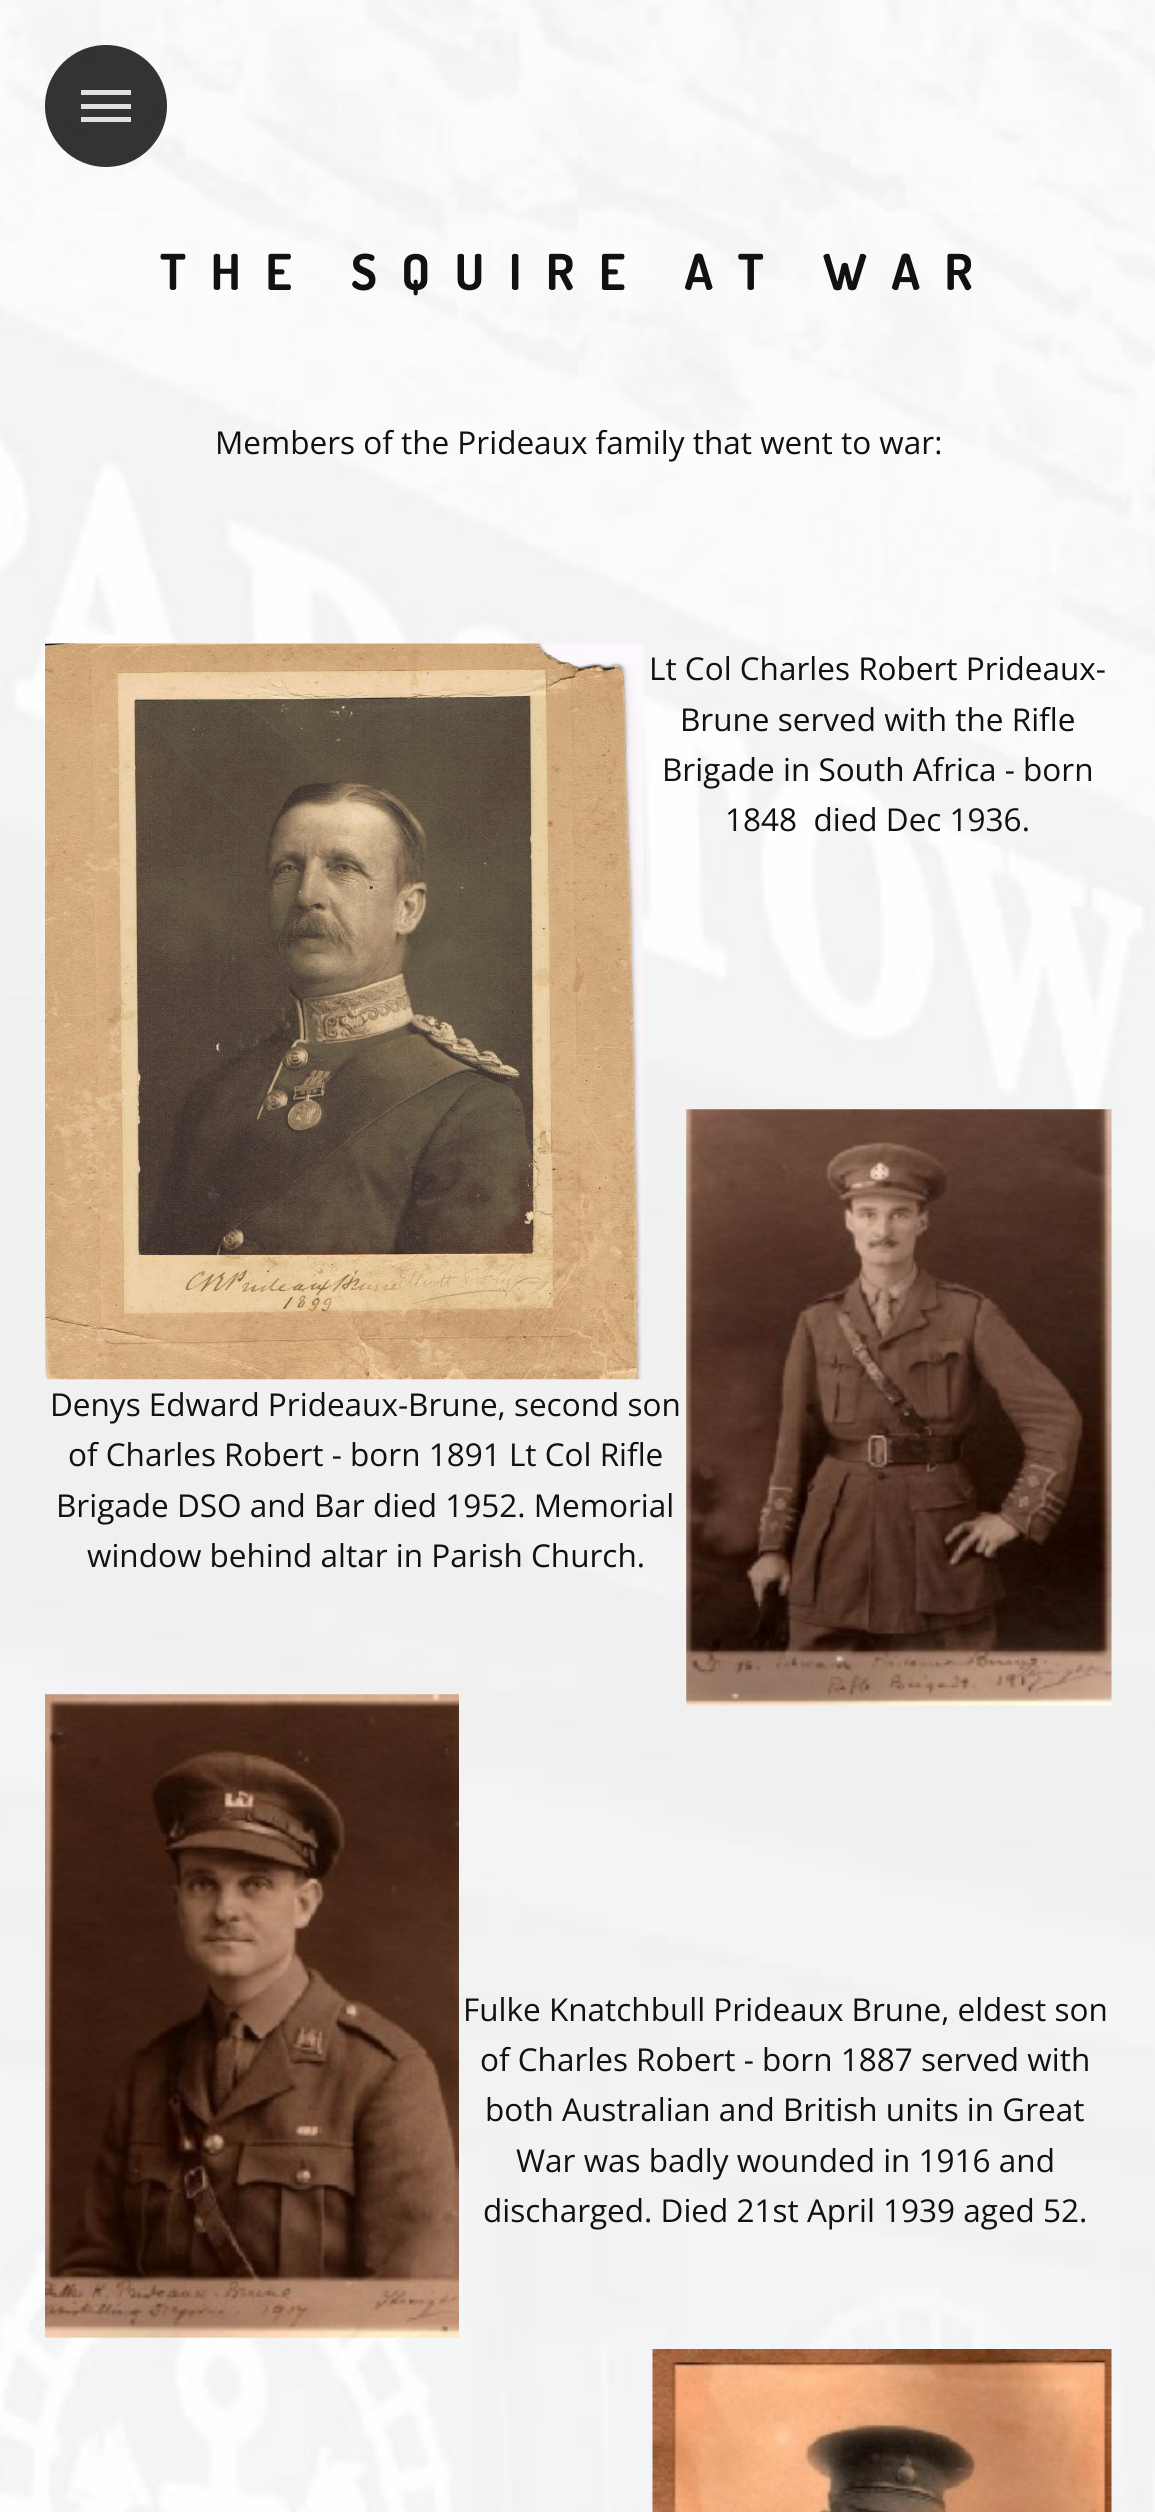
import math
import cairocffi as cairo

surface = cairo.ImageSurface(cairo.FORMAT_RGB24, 1155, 2512)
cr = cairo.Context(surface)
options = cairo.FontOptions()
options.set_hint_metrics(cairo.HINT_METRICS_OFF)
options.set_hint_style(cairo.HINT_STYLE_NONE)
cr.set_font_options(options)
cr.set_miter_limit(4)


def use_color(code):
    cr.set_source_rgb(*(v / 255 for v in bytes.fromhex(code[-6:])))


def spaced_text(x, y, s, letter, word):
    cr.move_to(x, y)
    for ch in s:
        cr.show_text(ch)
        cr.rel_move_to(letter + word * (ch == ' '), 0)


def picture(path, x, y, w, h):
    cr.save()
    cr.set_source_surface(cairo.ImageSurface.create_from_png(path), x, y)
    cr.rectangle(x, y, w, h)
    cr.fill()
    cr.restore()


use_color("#ffffff")
cr.paint()
picture("img1.png", 0, 0, 1155, 2512)
cr.set_source_rgba(0.067, 0.067, 0.067, 0.85)
cr.arc(106, 106, 61, 0, 2 * math.pi)
cr.fill()
use_color("#e1e1e1")
cr.rectangle(81, 104, 50, 5)
cr.fill()
cr.rectangle(81, 90, 50, 5)
cr.fill()
cr.rectangle(81, 117, 50, 5)
cr.fill()
cr.select_font_face("Dosis", cairo.FONT_SLANT_NORMAL, cairo.FONT_WEIGHT_BOLD)
cr.set_font_size(49.5)
use_color("#111111")
spaced_text(160, 290, "THE SQUIRE AT WAR", 24.75, 0)
cr.select_font_face("Open Sans")
cr.set_font_size(31.5)
cr.move_to(215, 454)
cr.show_text("Members of the Prideaux family that went to war:")
picture("img2.png", 45, 643, 599, 737)
cr.move_to(649, 680)
cr.show_text("Lt Col Charles Robert Prideaux-")
cr.move_to(680, 731)
cr.show_text("Brune served with the Rifle")
cr.move_to(662, 781)
cr.show_text("Brigade in South Africa - born")
cr.move_to(725, 831)
cr.show_text("1848  died Dec 1936.")
cr.move_to(50, 1416)
cr.show_text("Denys Edward Prideaux-Brune, second son")
cr.move_to(68, 1466)
cr.show_text("of Charles Robert - born 1891 Lt Col Rifle")
cr.move_to(56, 1517)
cr.show_text("Brigade DSO and Bar died 1952. Memorial")
cr.move_to(87, 1567)
cr.show_text("window behind altar in Parish Church.")
picture("img3.png", 686, 1109, 426, 597)
picture("img4.png", 45, 1694, 414, 644)
cr.move_to(463, 2021)
cr.show_text("Fulke Knatchbull Prideaux Brune, eldest son")
cr.move_to(480, 2071)
cr.show_text("of Charles Robert - born 1887 served with")
cr.move_to(485, 2121)
cr.show_text("both Australian and British units in Great")
cr.move_to(516, 2172)
cr.show_text("War was badly wounded in 1916 and")
cr.move_to(483, 2222)
cr.show_text("discharged. Died 21st April 1939 aged 52.")
picture("img5.png", 652, 2349, 460, 163)
surface.write_to_png("result.png")
